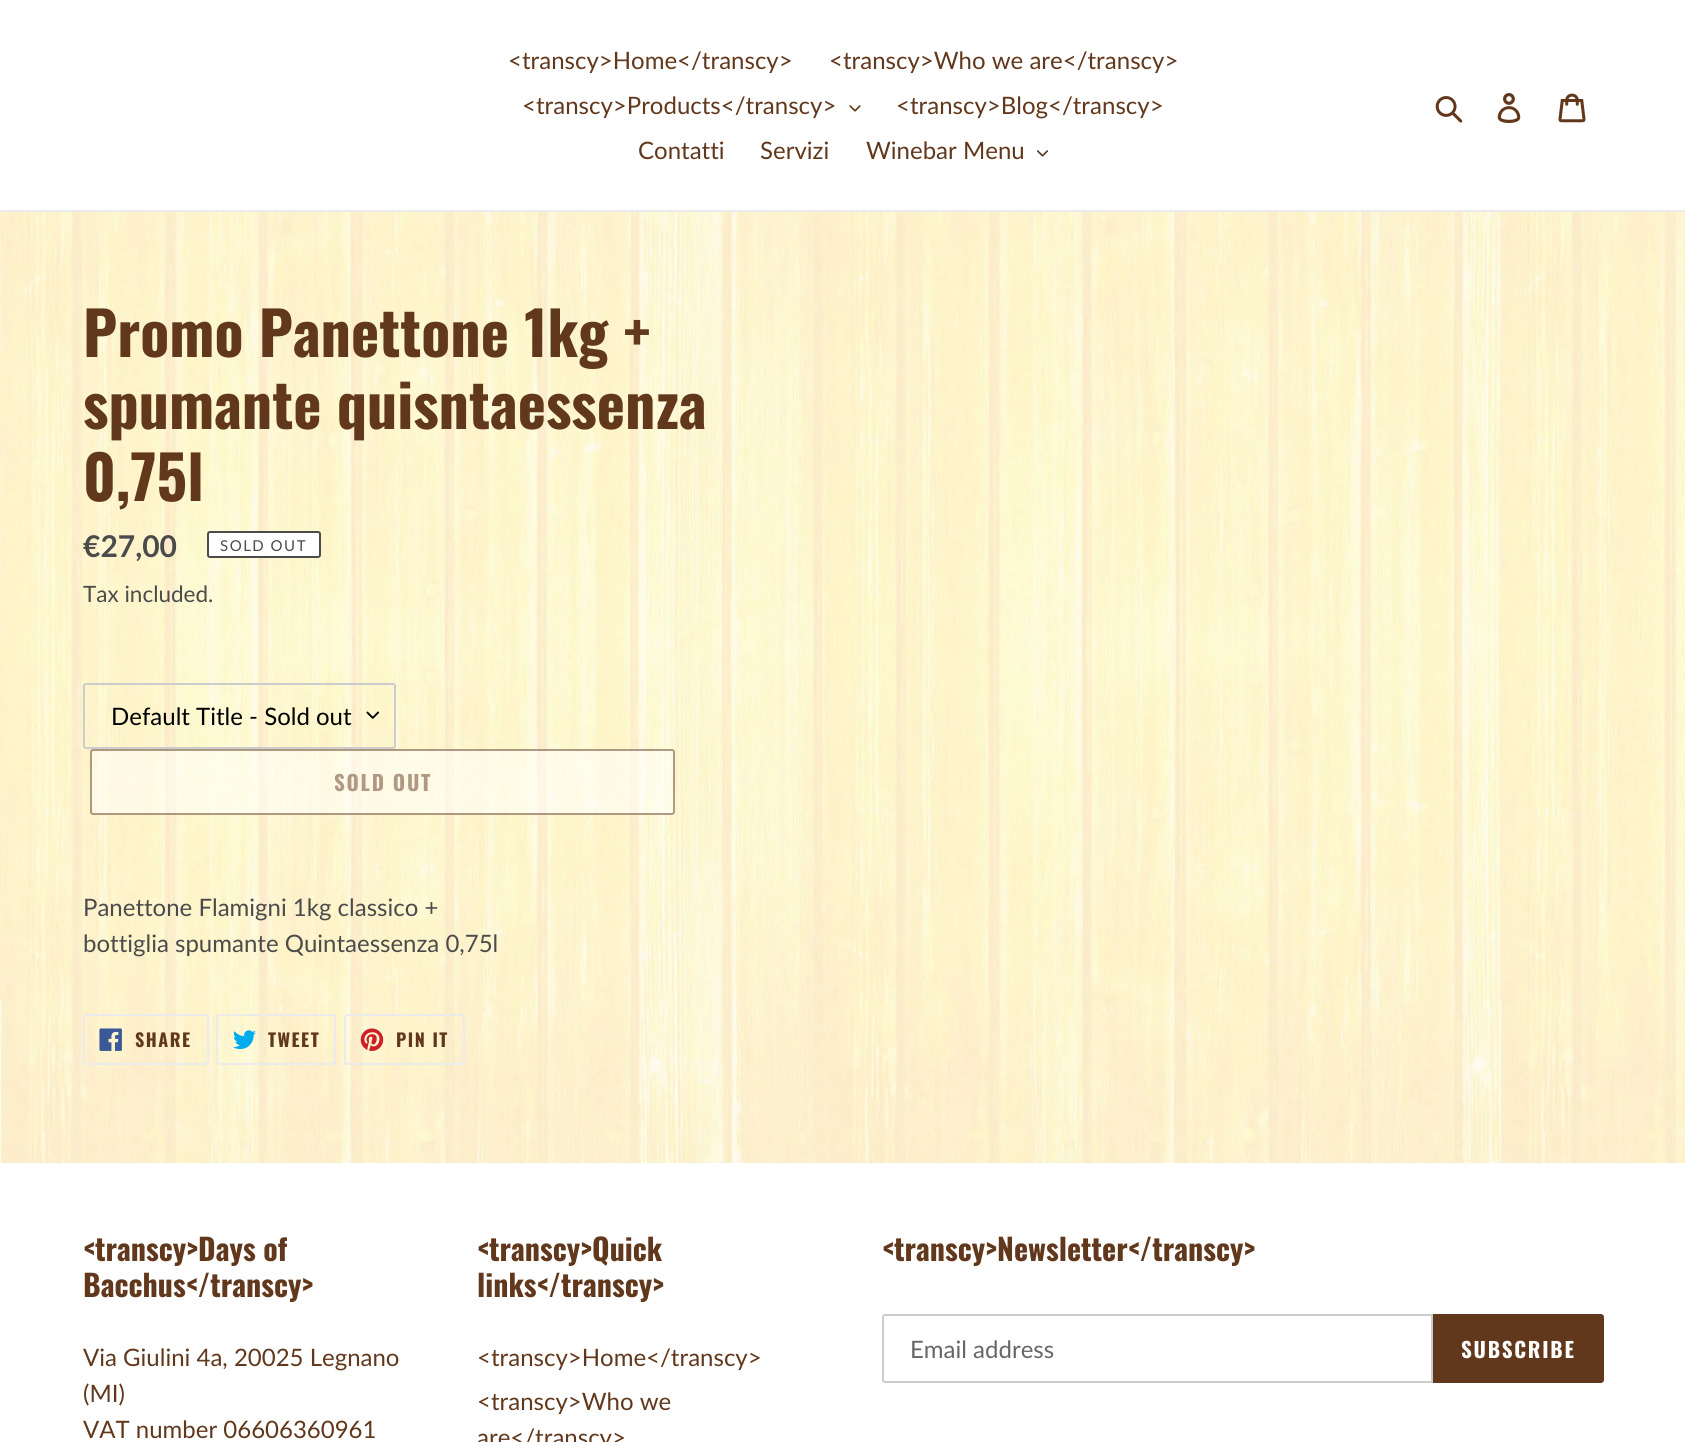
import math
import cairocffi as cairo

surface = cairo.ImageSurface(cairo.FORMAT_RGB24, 1685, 1442)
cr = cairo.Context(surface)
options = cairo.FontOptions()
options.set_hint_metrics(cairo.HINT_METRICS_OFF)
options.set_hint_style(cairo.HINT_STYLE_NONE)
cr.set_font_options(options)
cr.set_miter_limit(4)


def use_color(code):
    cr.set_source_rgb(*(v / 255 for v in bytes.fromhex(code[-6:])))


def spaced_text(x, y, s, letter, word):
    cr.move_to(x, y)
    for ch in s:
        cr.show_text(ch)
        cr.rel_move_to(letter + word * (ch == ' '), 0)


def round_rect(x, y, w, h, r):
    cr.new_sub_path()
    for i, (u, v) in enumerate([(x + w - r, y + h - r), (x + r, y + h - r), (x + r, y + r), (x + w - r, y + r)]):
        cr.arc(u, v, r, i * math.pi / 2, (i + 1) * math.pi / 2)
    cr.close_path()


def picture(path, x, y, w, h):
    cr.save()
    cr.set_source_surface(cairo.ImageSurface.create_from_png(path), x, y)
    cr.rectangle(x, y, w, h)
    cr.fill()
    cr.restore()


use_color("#ffffff")
cr.paint()
picture("img1.png", 0, 212, 1685, 951)
use_color("#ebebeb")
cr.rectangle(0, 210, 1685, 2)
cr.fill()
cr.select_font_face("Lato")
cr.set_font_size(24)
use_color("#62381d")
cr.move_to(508, 69)
cr.show_text("<transcy>Home</transcy>")
cr.move_to(829, 69)
cr.show_text("<transcy>Who we are</transcy>")
cr.move_to(522, 114)
cr.show_text("<transcy>Products</transcy>")
picture("img2.png", 849, 105, 12, 7)
cr.move_to(896, 114)
cr.show_text("<transcy>Blog</transcy>")
cr.move_to(638, 159)
cr.show_text("Contatti")
cr.move_to(760, 159)
cr.show_text("Servizi")
cr.move_to(866, 159)
cr.show_text("Winebar Menu")
picture("img3.png", 1037, 150, 11, 7)
picture("img4.png", 1435, 96, 28, 27)
picture("img5.png", 1497, 93, 24, 30)
picture("img6.png", 1558, 93, 28, 30)
cr.select_font_face("Oswald", cairo.FONT_SLANT_NORMAL, cairo.FONT_WEIGHT_BOLD)
cr.set_font_size(60)
cr.move_to(83, 357)
cr.show_text("Promo Panettone 1kg +")
cr.move_to(83, 429)
cr.show_text("spumante quisntaessenza")
cr.move_to(83, 501)
cr.show_text("0,75l")
cr.select_font_face("Lato", cairo.FONT_SLANT_NORMAL, cairo.FONT_WEIGHT_BOLD)
cr.set_font_size(30)
use_color("#4b4b4b")
cr.move_to(83, 557)
cr.show_text("€27,00")
use_color("#ffffff")
round_rect(208, 532, 112, 25, 2)
cr.fill_preserve()
use_color("#4b4b4b")
cr.stroke()
cr.select_font_face("Lato")
cr.set_font_size(15)
spaced_text(220, 551, "SOLD OUT", 1.5, 0)
cr.set_font_size(22.5)
cr.move_to(83, 602)
cr.show_text("Tax included.")
picture("img7.png", 366, 711, 14, 8)
round_rect(84, 684, 311, 64, 2)
use_color("#cccccc")
cr.stroke()
cr.set_font_size(24)
use_color("#000000")
cr.move_to(111, 725)
cr.show_text("Default Title - Sold out")
cr.set_source_rgba(1, 1, 1, 0.5)
round_rect(90, 749, 585, 66, 3)
cr.fill()
round_rect(91, 750, 583, 64, 2)
cr.set_source_rgba(0.384, 0.22, 0.114, 0.5)
cr.stroke()
cr.select_font_face("Oswald", cairo.FONT_SLANT_NORMAL, cairo.FONT_WEIGHT_BOLD)
cr.set_font_size(21)
use_color("#b09982")
spaced_text(334, 791, "SOLD OUT", 1.75, 0)
cr.select_font_face("Lato")
cr.set_font_size(24)
use_color("#4b4b4b")
cr.move_to(83, 916)
cr.show_text("Panettone Flamigni 1kg classico +")
cr.move_to(83, 952)
cr.show_text("bottiglia spumante Quintaessenza 0,75l")
round_rect(84, 1015, 124, 49, 2)
use_color("#ebebeb")
cr.stroke()
picture("img8.png", 99, 1028, 23, 23)
cr.select_font_face("Oswald", cairo.FONT_SLANT_NORMAL, cairo.FONT_WEIGHT_BOLD)
cr.set_font_size(18)
use_color("#62381d")
spaced_text(135, 1047, "SHARE", 1.5, 0)
round_rect(217, 1015, 118, 49, 2)
use_color("#ebebeb")
cr.stroke()
picture("img9.png", 233, 1030, 23, 20)
use_color("#62381d")
spaced_text(268, 1047, "TWEET", 1.5, 0)
round_rect(345, 1015, 119, 49, 2)
use_color("#ebebeb")
cr.stroke()
picture("img10.png", 360, 1028, 24, 23)
use_color("#62381d")
spaced_text(396, 1047, "PIN IT", 1.5, 0)
cr.set_font_size(30)
cr.move_to(83, 1261)
cr.show_text("<transcy>Days of")
cr.move_to(83, 1297)
cr.show_text("Bacchus</transcy>")
cr.select_font_face("Lato")
cr.set_font_size(24)
cr.move_to(83, 1366)
cr.show_text("Via Giulini 4a, 20025 Legnano")
cr.move_to(83, 1402)
cr.show_text("(MI)")
cr.move_to(83, 1438)
cr.show_text("VAT number 06606360961")
cr.select_font_face("Oswald", cairo.FONT_SLANT_NORMAL, cairo.FONT_WEIGHT_BOLD)
cr.set_font_size(30)
cr.move_to(477, 1261)
cr.show_text("<transcy>Quick")
cr.move_to(477, 1297)
cr.show_text("links</transcy>")
cr.select_font_face("Lato")
cr.set_font_size(24)
cr.move_to(477, 1366)
cr.show_text("<transcy>Home</transcy>")
cr.move_to(477, 1410)
cr.show_text("<transcy>Who we")
cr.move_to(477, 1446)
cr.show_text("are</transcy>")
cr.select_font_face("Oswald", cairo.FONT_SLANT_NORMAL, cairo.FONT_WEIGHT_BOLD)
cr.set_font_size(30)
cr.move_to(882, 1261)
cr.show_text("<transcy>Newsletter</transcy>")
cr.new_path()
cr.move_to(885, 1315)
cr.line_to(1432, 1315)
cr.line_to(1432, 1382)
cr.line_to(885, 1382)
cr.curve_to(884, 1382, 883, 1381, 883, 1380)
cr.line_to(883, 1317)
cr.curve_to(883, 1316, 884, 1315, 885, 1315)
cr.close_path()
use_color("#cccccc")
cr.stroke()
cr.select_font_face("Lato")
cr.set_font_size(24)
use_color("#666666")
cr.move_to(910, 1358)
cr.show_text("Email address")
use_color("#62381d")
cr.new_path()
cr.move_to(1433, 1314)
cr.line_to(1601, 1314)
cr.curve_to(1602.5, 1314, 1604, 1315.5, 1604, 1317)
cr.line_to(1604, 1380)
cr.curve_to(1604, 1381.5, 1602.5, 1383, 1601, 1383)
cr.line_to(1433, 1383)
cr.close_path()
cr.fill()
cr.select_font_face("Oswald", cairo.FONT_SLANT_NORMAL, cairo.FONT_WEIGHT_BOLD)
cr.set_font_size(21)
use_color("#ffffff")
spaced_text(1461, 1358, "SUBSCRIBE", 1.75, 0)
surface.write_to_png("result.png")
